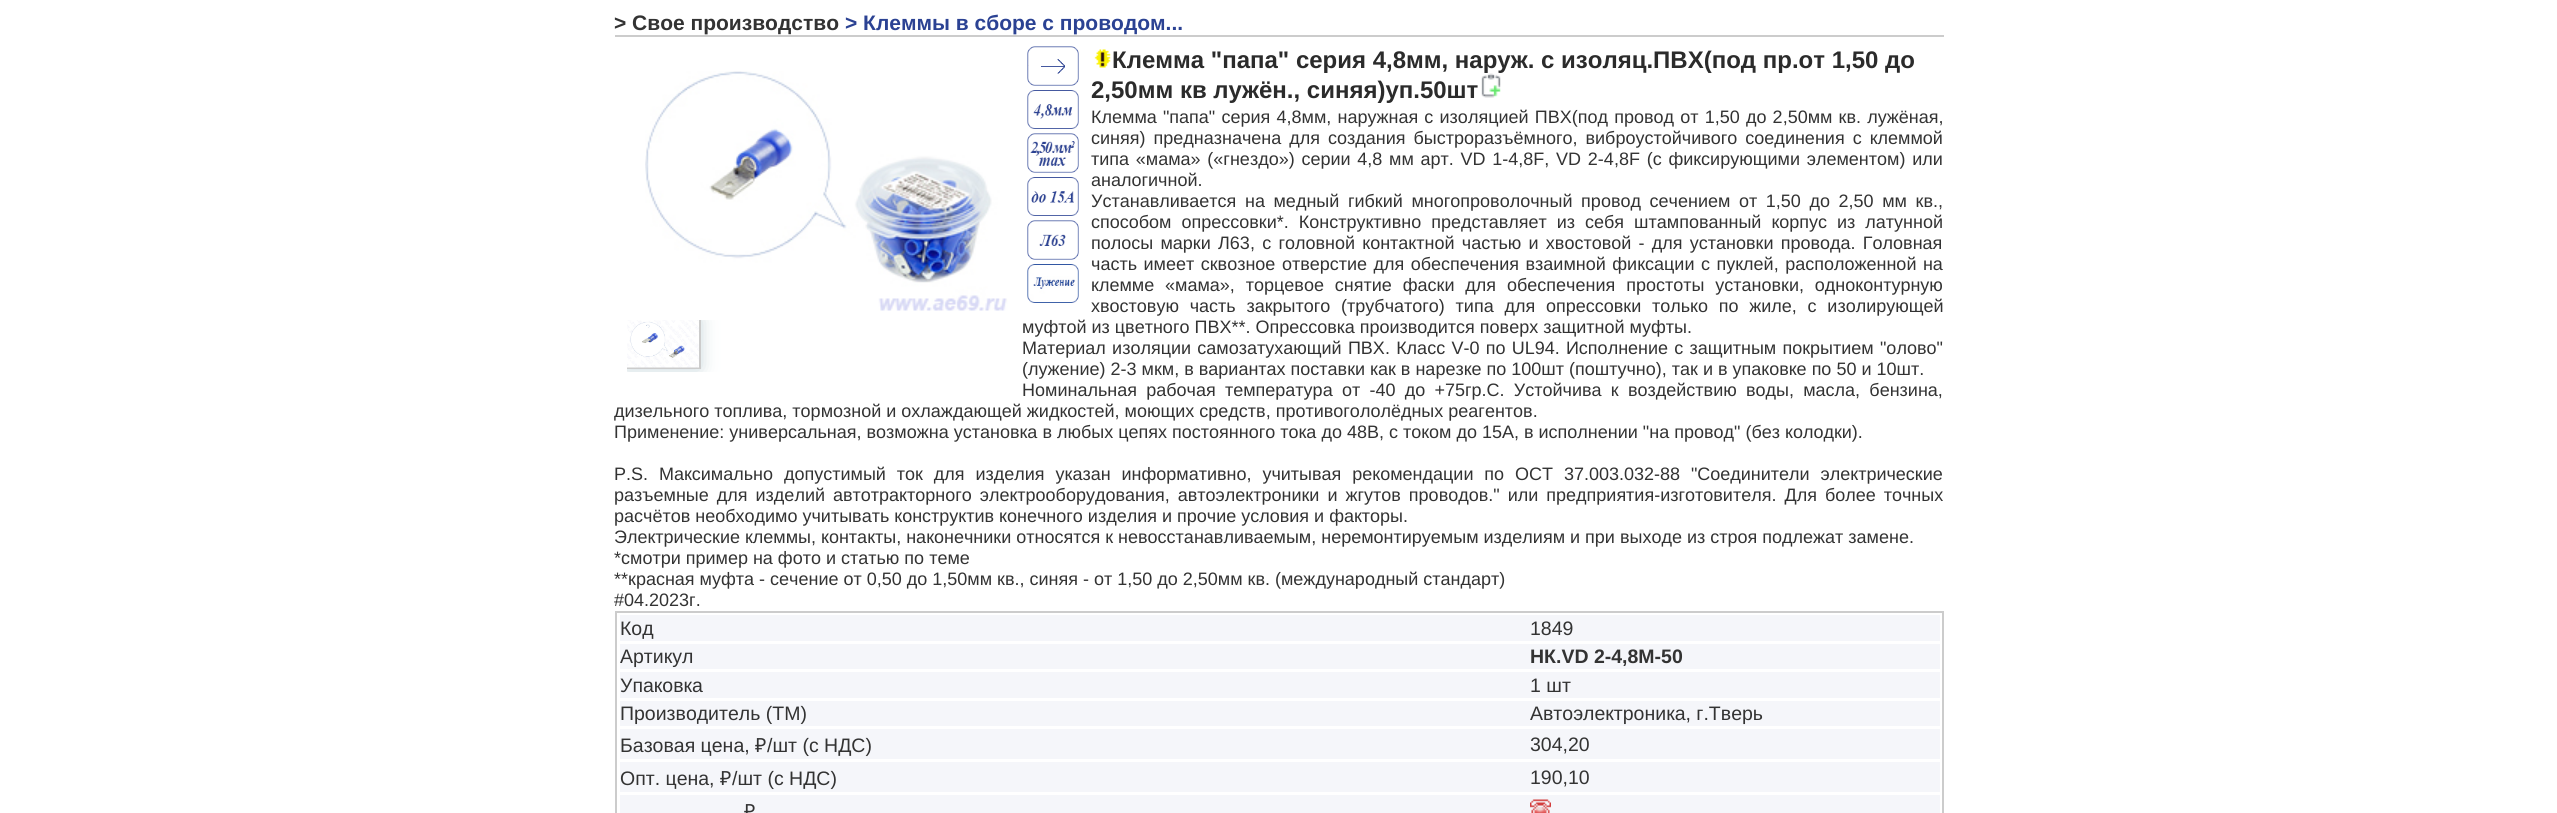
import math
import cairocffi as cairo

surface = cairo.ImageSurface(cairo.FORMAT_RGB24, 2557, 813)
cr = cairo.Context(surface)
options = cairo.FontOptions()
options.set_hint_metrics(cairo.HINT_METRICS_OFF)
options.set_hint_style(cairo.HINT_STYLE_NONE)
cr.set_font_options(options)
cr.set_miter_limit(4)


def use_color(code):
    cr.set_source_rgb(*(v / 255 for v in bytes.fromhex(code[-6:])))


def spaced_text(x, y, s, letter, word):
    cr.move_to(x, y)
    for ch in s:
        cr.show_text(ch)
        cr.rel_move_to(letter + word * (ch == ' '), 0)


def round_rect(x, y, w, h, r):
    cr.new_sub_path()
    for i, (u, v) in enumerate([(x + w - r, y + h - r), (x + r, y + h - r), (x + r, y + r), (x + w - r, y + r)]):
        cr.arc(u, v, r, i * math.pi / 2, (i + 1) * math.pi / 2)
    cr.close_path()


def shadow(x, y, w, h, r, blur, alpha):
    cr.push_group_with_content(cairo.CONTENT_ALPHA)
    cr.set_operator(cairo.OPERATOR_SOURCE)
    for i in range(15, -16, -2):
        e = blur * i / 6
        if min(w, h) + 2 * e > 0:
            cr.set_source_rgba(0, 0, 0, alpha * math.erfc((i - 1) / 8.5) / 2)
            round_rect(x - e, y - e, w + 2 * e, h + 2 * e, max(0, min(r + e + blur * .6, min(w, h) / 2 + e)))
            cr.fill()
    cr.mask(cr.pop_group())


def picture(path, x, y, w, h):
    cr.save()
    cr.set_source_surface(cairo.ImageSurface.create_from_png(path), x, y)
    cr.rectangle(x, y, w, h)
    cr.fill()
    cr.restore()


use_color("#ffffff")
cr.paint()
use_color("#cccccc")
cr.rectangle(615, 35, 1329, 2)
cr.fill()
cr.select_font_face("Liberation Sans", cairo.FONT_SLANT_NORMAL, cairo.FONT_WEIGHT_BOLD)
cr.set_font_size(21)
use_color("#333333")
cr.move_to(614, 30)
cr.show_text("> Свое производство")
use_color("#2b4293")
cr.move_to(845, 30)
cr.show_text("> Клеммы в сборе с проводом...")
picture("img1.png", 645, 71, 363, 240)
cr.save()
cr.rectangle(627, 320, 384, 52)
cr.clip()
use_color("#bfd0d5")
shadow(627, 320, 72, 48, 0, 9, 1)
cr.restore()
cr.save()
cr.rectangle(627, 320, 384, 52)
cr.clip()
cr.rectangle(627, 319, 73, 49)
use_color("#cccccc")
cr.stroke()
cr.restore()
picture("img2.png", 627, 320, 72, 48)
picture("img3.png", 1027, 46, 52, 40)
picture("img4.png", 1027, 90, 52, 39)
picture("img5.png", 1027, 133, 52, 40)
picture("img6.png", 1027, 177, 52, 39)
picture("img7.png", 1027, 220, 52, 40)
picture("img8.png", 1027, 264, 52, 39)
picture("img9.png", 1094, 49, 17, 19)
cr.set_font_size(24)
use_color("#2b2b2b")
cr.move_to(1112, 68)
cr.show_text("Клемма \"папа\" серия 4,8мм, наруж. с изоляц.ПВХ(под пр.от 1,50 до")
cr.move_to(1091, 98)
cr.show_text("2,50мм кв лужён., синяя)уп.50шт")
picture("img10.png", 1481, 73, 20, 25)
cr.select_font_face("Liberation Sans")
cr.set_font_size(18)
use_color("#333333")
spaced_text(1091, 123, "Клемма \"папа\" серия 4,8мм, наружная с изоляцией ПВХ(под провод от 1,50 до 2,50мм кв. лужёная,", 0, 1.2)
spaced_text(1091, 144, "синяя) предназначена для создания быстроразъёмного, виброустойчивого соединения с клеммой", 0, 3)
spaced_text(1091, 165, "типа «мама» («гнездо») серии 4,8 мм арт. VD 1-4,8F, VD 2-4,8F (с фиксирующими элементом) или", 0, 1.75)
cr.move_to(1091, 186)
cr.show_text("аналогичной.")
spaced_text(1091, 207, "Устанавливается на медный гибкий многопроволочный провод сечением от 1,50 до 2,50 мм кв.,", 0, 3.6)
spaced_text(1091, 228, "способом опрессовки*. Конструктивно представляет из себя штампованный корпус из латунной", 0, 5)
spaced_text(1091, 249, "полосы марки Л63, с головной контактной частью и хвостовой - для установки провода. Головная", 0, 2.25)
spaced_text(1091, 270, "часть имеет сквозное отверстие для обеспечения взаимной фиксации с пуклей, расположенной на", 0, 1.5)
spaced_text(1091, 291, "клемме «мама», торцевое снятие фаски для обеспечения простоты установки, одноконтурную", 0, 5.9)
spaced_text(1091, 312, "хвостовую часть закрытого (трубчатого) типа для опрессовки только по жиле, с изолирующей", 0, 5.75)
cr.move_to(1022, 333)
cr.show_text("муфтой из цветного ПВХ**. Опрессовка производится поверх защитной муфты.")
spaced_text(1022, 354, "Материал изоляции самозатухающий ПВХ. Класс V-0 по UL94. Исполнение с защитным покрытием \"олово\"", 0, 1.25)
cr.move_to(1022, 375)
cr.show_text("(лужение) 2-3 мкм, в вариантах поставки как в нарезке по 100шт (поштучно), так и в упаковке по 50 и 10шт.")
spaced_text(1022, 396, "Номинальная рабочая температура от -40 до +75гр.С. Устойчива к воздействию воды, масла, бензина,", 0, 4.25)
cr.move_to(614, 417)
cr.show_text("дизельного топлива, тормозной и охлаждающей жидкостей, моющих средств, противогололёдных реагентов.")
cr.move_to(614, 438)
cr.show_text("Применение: универсальная, возможна установка в любых цепях постоянного тока до 48В, с током до 15А, в исполнении \"на провод\" (без колодки).")
spaced_text(614, 480, "P.S. Максимально допустимый ток для изделия указан информативно, учитывая рекомендации по ОСТ 37.003.032-88 \"Соединители электрические", 0, 5.9)
spaced_text(614, 501, "разъемные для изделий автотракторного электрооборудования, автоэлектроники и жгутов проводов.\" или предприятия-изготовителя. Для более точных", 0, 3)
cr.move_to(614, 522)
cr.show_text("расчётов необходимо учитывать конструктив конечного изделия и прочие условия и факторы.")
cr.move_to(614, 543)
cr.show_text("Электрические клеммы, контакты, наконечники относятся к невосстанавливаемым, неремонтируемым изделиям и при выходе из строя подлежат замене.")
cr.move_to(614, 564)
cr.show_text("*смотри пример на фото и статью по теме")
cr.move_to(614, 585)
cr.show_text("**красная муфта - сечение от 0,50 до 1,50мм кв., синяя - от 1,50 до 2,50мм кв. (международный стандарт)")
cr.move_to(614, 606)
cr.show_text("#04.2023г.")
cr.rectangle(616, 612, 1327, 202)
use_color("#cccccc")
cr.stroke()
use_color("#f5f6fa")
cr.rectangle(620, 615, 1320, 26)
cr.fill()
cr.set_font_size(19.5)
use_color("#333333")
cr.move_to(620, 635)
cr.show_text("Код")
cr.move_to(1530, 635)
cr.show_text("1849")
use_color("#f5f6fa")
cr.rectangle(620, 644, 1320, 25)
cr.fill()
use_color("#333333")
cr.move_to(620, 663)
cr.show_text("Артикул")
cr.select_font_face("Liberation Sans", cairo.FONT_SLANT_NORMAL, cairo.FONT_WEIGHT_BOLD)
cr.move_to(1530, 663)
cr.show_text("НК.VD 2-4,8M-50")
use_color("#f5f6fa")
cr.rectangle(620, 672, 1320, 26)
cr.fill()
cr.select_font_face("Liberation Sans")
use_color("#333333")
cr.move_to(620, 692)
cr.show_text("Упаковка")
cr.move_to(1530, 692)
cr.show_text("1 шт")
use_color("#f5f6fa")
cr.rectangle(620, 701, 1320, 25)
cr.fill()
use_color("#333333")
cr.move_to(620, 720)
cr.show_text("Производитель (ТМ)")
cr.move_to(1530, 720)
cr.show_text("Автоэлектроника, г.Тверь")
use_color("#f5f6fa")
cr.rectangle(620, 729, 1320, 30)
cr.fill()
use_color("#333333")
cr.move_to(620, 752)
cr.show_text("Базовая цена,")
cr.select_font_face("Noto Sans")
cr.move_to(755, 752)
cr.show_text("₽")
cr.select_font_face("Liberation Sans")
cr.move_to(767, 752)
cr.show_text("/шт (с НДС)")
cr.move_to(1530, 751)
cr.show_text("304,20")
use_color("#f5f6fa")
cr.rectangle(620, 762, 1320, 30)
cr.fill()
use_color("#333333")
cr.move_to(620, 785)
cr.show_text("Опт. цена,")
cr.select_font_face("Noto Sans")
cr.move_to(720, 785)
cr.show_text("₽")
cr.select_font_face("Liberation Sans")
cr.move_to(732, 785)
cr.show_text("/шт (с НДС)")
cr.move_to(1530, 784)
cr.show_text("190,10")
use_color("#f5f6fa")
cr.rectangle(620, 795, 1320, 18)
cr.fill()
cr.select_font_face("Noto Sans")
use_color("#333333")
cr.move_to(744, 818)
cr.show_text("₽")
picture("img11.png", 1530, 799, 21, 14)
surface.write_to_png("result.png")
